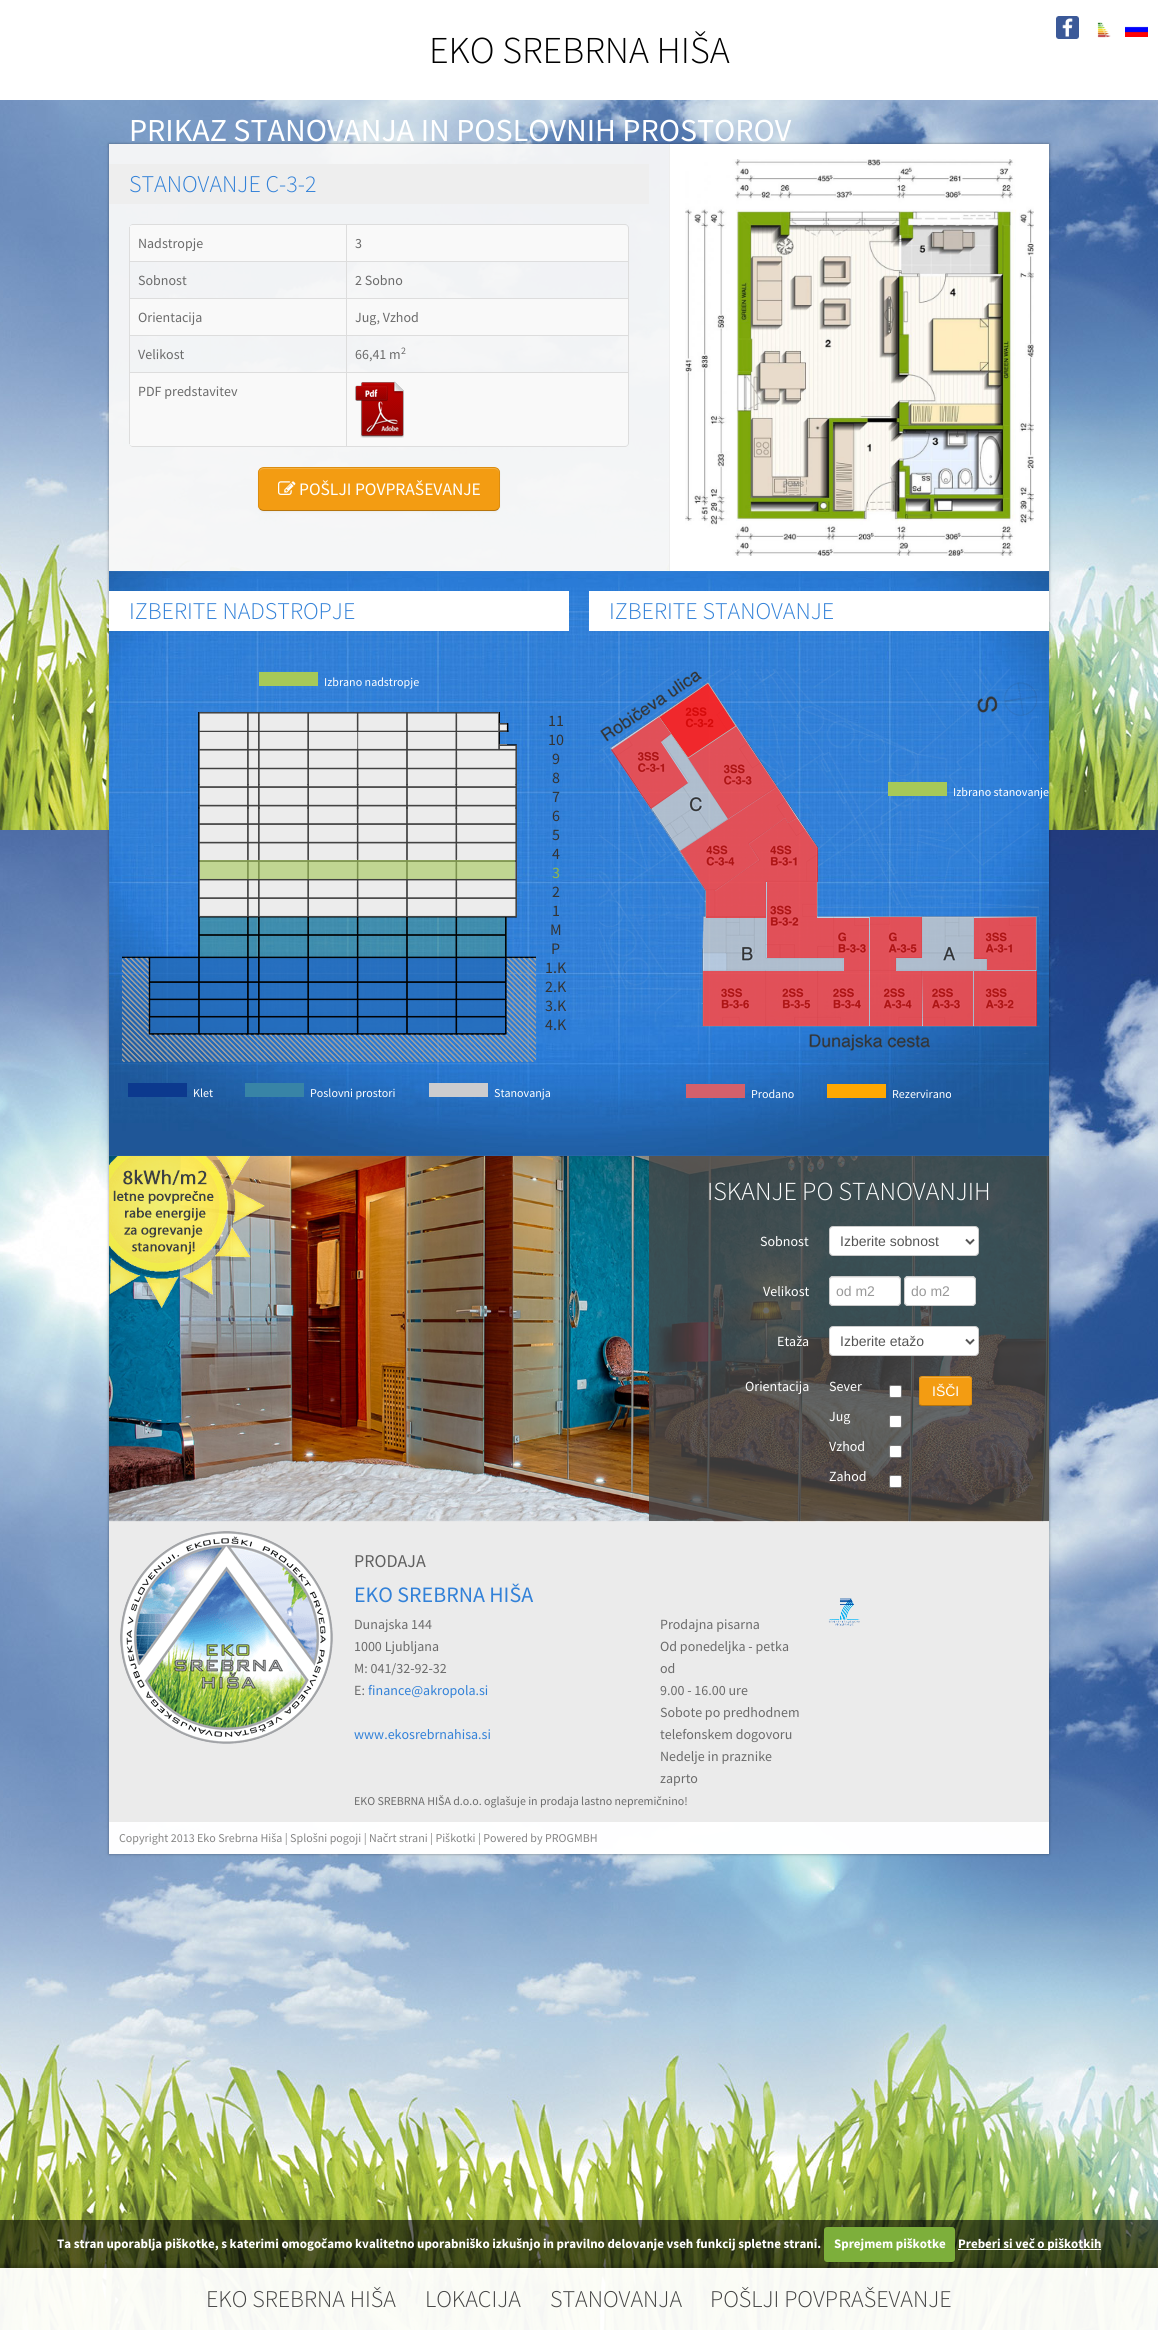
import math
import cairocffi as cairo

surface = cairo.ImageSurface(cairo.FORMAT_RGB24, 1158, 2330)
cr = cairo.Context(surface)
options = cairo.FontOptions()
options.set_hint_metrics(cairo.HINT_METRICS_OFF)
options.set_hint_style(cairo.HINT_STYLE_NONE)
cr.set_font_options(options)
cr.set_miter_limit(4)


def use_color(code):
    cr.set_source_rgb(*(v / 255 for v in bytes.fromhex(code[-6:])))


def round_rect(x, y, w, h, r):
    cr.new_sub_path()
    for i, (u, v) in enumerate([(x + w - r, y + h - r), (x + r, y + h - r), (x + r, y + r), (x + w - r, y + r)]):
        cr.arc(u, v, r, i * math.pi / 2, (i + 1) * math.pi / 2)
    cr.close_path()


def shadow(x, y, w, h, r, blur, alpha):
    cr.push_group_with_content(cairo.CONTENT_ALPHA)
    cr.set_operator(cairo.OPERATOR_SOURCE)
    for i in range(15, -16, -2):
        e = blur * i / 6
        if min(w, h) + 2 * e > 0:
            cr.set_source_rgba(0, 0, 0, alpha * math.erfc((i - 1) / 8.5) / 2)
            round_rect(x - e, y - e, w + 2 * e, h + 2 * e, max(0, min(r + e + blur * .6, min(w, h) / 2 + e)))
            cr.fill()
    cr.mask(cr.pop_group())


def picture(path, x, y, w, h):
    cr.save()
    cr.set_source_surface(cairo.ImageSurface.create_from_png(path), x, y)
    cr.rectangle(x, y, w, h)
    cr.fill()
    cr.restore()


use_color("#ffffff")
cr.paint()
picture("img1.png", 0, 100, 1158, 2230)
cr.select_font_face("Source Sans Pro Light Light")
cr.set_font_size(38)
use_color("#000000")
cr.move_to(429, 63)
cr.show_text("EKO SREBRNA HIŠA")
picture("img2.png", 1056, 16, 23, 23)
picture("img3.png", 1097, 22, 14, 16)
picture("img4.png", 1125, 26, 23, 11)
cr.save()
cr.set_fill_rule(cairo.FILL_RULE_EVEN_ODD)
cr.new_path()
cr.move_to(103, 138)
cr.line_to(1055, 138)
cr.line_to(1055, 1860)
cr.line_to(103, 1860)
cr.close_path()
cr.move_to(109, 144)
cr.line_to(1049, 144)
cr.line_to(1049, 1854)
cr.line_to(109, 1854)
cr.close_path()
cr.clip()
use_color("#000000")
shadow(109, 144, 940, 1710, 0, 1.5, 0.4)
cr.restore()
cr.select_font_face("Source Sans Pro")
cr.set_font_size(32)
use_color("#ffffff")
cr.move_to(129, 141)
cr.show_text("PRIKAZ STANOVANJA IN POSLOVNIH PROSTOROV")
cr.set_source_rgba(0.973, 0.973, 0.973, 0.95)
cr.rectangle(109, 144, 940, 1710)
cr.fill()
use_color("#eeeeee")
cr.rectangle(109, 164, 540, 40)
cr.fill()
cr.select_font_face("Source Sans Pro Light Light")
cr.set_font_size(24)
use_color("#3281d8")
cr.move_to(129, 192)
cr.show_text("STANOVANJE C-3-2")
use_color("#dddddd")
cr.set_fill_rule(cairo.FILL_RULE_EVEN_ODD)
cr.new_path()
cr.move_to(133, 224)
cr.line_to(625, 224)
cr.curve_to(627, 224, 629, 226, 629, 228)
cr.line_to(629, 443)
cr.curve_to(629, 445, 627, 447, 625, 447)
cr.line_to(133, 447)
cr.curve_to(131, 447, 129, 445, 129, 443)
cr.line_to(129, 228)
cr.curve_to(129, 226, 131, 224, 133, 224)
cr.close_path()
cr.move_to(133, 225)
cr.line_to(625, 225)
cr.curve_to(627, 225, 628, 226, 628, 228)
cr.line_to(628, 443)
cr.curve_to(628, 445, 627, 446, 625, 446)
cr.line_to(133, 446)
cr.curve_to(131, 446, 129, 445, 129, 443)
cr.line_to(129, 228)
cr.curve_to(129, 226, 131, 225, 133, 225)
cr.close_path()
cr.fill()
use_color("#f9f9f9")
cr.new_path()
cr.move_to(133, 225)
cr.line_to(346, 225)
cr.line_to(346, 261)
cr.line_to(129, 261)
cr.line_to(129, 229)
cr.curve_to(129, 227, 131, 225, 133, 225)
cr.close_path()
cr.fill()
use_color("#dddddd")
cr.rectangle(129, 227, 1, 34)
cr.fill()
cr.select_font_face("Source Sans Pro")
cr.set_font_size(14)
use_color("#6b6b6b")
cr.move_to(138, 248)
cr.show_text("Nadstropje")
use_color("#f9f9f9")
cr.new_path()
cr.move_to(346, 225)
cr.line_to(624, 225)
cr.curve_to(626, 225, 628, 227, 628, 229)
cr.line_to(628, 261)
cr.line_to(346, 261)
cr.close_path()
cr.fill()
use_color("#dddddd")
cr.rectangle(346, 225, 1, 36)
cr.fill()
use_color("#6b6b6b")
cr.move_to(355, 248)
cr.show_text("3")
use_color("#dddddd")
cr.rectangle(129, 261, 499, 1)
cr.fill()
cr.rectangle(129, 261, 1, 37)
cr.fill()
use_color("#6b6b6b")
cr.move_to(138, 285)
cr.show_text("Sobnost")
use_color("#dddddd")
cr.rectangle(346, 261, 1, 37)
cr.fill()
use_color("#6b6b6b")
cr.move_to(355, 285)
cr.show_text("2 Sobno")
use_color("#f9f9f9")
cr.rectangle(130, 299, 216, 36)
cr.fill()
use_color("#dddddd")
cr.rectangle(129, 298, 499, 1)
cr.fill()
cr.rectangle(129, 298, 1, 37)
cr.fill()
use_color("#6b6b6b")
cr.move_to(138, 322)
cr.show_text("Orientacija")
use_color("#f9f9f9")
cr.rectangle(347, 299, 281, 36)
cr.fill()
use_color("#dddddd")
cr.rectangle(346, 298, 1, 37)
cr.fill()
use_color("#6b6b6b")
cr.move_to(355, 322)
cr.show_text("Jug, Vzhod")
use_color("#dddddd")
cr.rectangle(129, 335, 499, 1)
cr.fill()
cr.rectangle(129, 335, 1, 37)
cr.fill()
use_color("#6b6b6b")
cr.move_to(138, 359)
cr.show_text("Velikost")
use_color("#dddddd")
cr.rectangle(346, 335, 1, 37)
cr.fill()
use_color("#6b6b6b")
cr.move_to(355, 359)
cr.show_text("66,41 m")
cr.set_font_size(10)
cr.move_to(401, 354)
cr.show_text("2")
use_color("#f9f9f9")
cr.new_path()
cr.move_to(129, 372)
cr.line_to(346, 372)
cr.line_to(346, 446)
cr.line_to(133, 446)
cr.curve_to(131, 446, 129, 444, 129, 442)
cr.close_path()
cr.fill()
use_color("#dddddd")
cr.rectangle(129, 372, 217, 1)
cr.fill()
cr.rectangle(129, 372, 1, 72)
cr.fill()
cr.set_font_size(14)
use_color("#6b6b6b")
cr.move_to(138, 396)
cr.show_text("PDF predstavitev")
use_color("#f9f9f9")
cr.new_path()
cr.move_to(346, 372)
cr.line_to(628, 372)
cr.line_to(628, 442)
cr.curve_to(628, 444, 626, 446, 624, 446)
cr.line_to(346, 446)
cr.close_path()
cr.fill()
use_color("#dddddd")
cr.rectangle(346, 372, 282, 1)
cr.fill()
cr.rectangle(346, 372, 1, 74)
cr.fill()
picture("img5.png", 355, 381, 49, 57)
use_color("#000000")
shadow(258, 468, 242, 44, 6, 1, 0.05)
use_color("#f39c12")
round_rect(258, 467, 242, 44, 6)
cr.fill()
cr.save()
cr.set_fill_rule(cairo.FILL_RULE_WINDING)
round_rect(258, 467, 242, 44, 6)
cr.clip()
cr.rectangle(258, 468, 242, 42)
cr.fill()
cr.restore()
use_color("#f5b041")
cr.set_fill_rule(cairo.FILL_RULE_WINDING)
cr.new_path()
cr.move_to(264, 469)
cr.line_to(494, 469)
cr.curve_to(497, 469, 499, 471, 499, 474)
cr.line_to(499, 473)
cr.curve_to(499, 470, 497, 468, 494, 468)
cr.line_to(264, 468)
cr.curve_to(261, 468, 259, 470, 259, 473)
cr.line_to(259, 474)
cr.curve_to(259, 471, 261, 469, 264, 469)
cr.close_path()
cr.fill()
cr.new_path()
cr.move_to(498, 509)
cr.curve_to(497, 510, 495.5, 510.5, 494, 510.5)
cr.line_to(264, 510.5)
cr.curve_to(262.5, 510.5, 261, 510, 260, 509)
cr.set_source_rgba(0, 0, 0, 0.25)
cr.set_line_width(1)
cr.stroke()
cr.new_path()
cr.move_to(260, 509)
cr.curve_to(259, 508, 258.5, 506.5, 258.5, 505)
cr.line_to(258.5, 473)
cr.curve_to(258.5, 471.5, 259, 470, 260, 469)
cr.curve_to(261, 468, 262.5, 467.5, 264, 467.5)
cr.line_to(494, 467.5)
cr.curve_to(495.5, 467.5, 497, 468, 498, 469)
cr.curve_to(499, 470, 499.5, 471.5, 499.5, 473)
cr.line_to(499.5, 505)
cr.curve_to(499.5, 506.5, 499, 508, 498, 509)
cr.set_source_rgba(0, 0, 0, 0.1)
cr.stroke()
picture("img6.png", 278, 481, 18, 14)
cr.set_font_size(17.5)
use_color("#ffffff")
cr.move_to(299, 495)
cr.show_text("POŠLJI POVPRAŠEVANJE")
cr.rectangle(670, 144, 379, 427)
cr.fill()
use_color("#eeeeee")
cr.rectangle(669, 144, 1, 427)
cr.fill()
picture("img7.png", 685, 159, 349, 397)
picture("img8.png", 109, 571, 940, 585)
use_color("#ffffff")
cr.rectangle(109, 591, 460, 40)
cr.fill()
cr.select_font_face("Source Sans Pro Light Light")
cr.set_font_size(24)
use_color("#3281d8")
cr.move_to(129, 619)
cr.show_text("IZBERITE NADSTROPJE")
use_color("#a7c958")
cr.rectangle(259, 672, 59, 14)
cr.fill()
cr.select_font_face("Source Sans Pro")
cr.set_font_size(12)
use_color("#ffffff")
cr.move_to(324, 686)
cr.show_text("Izbrano nadstropje")
picture("img9.png", 122, 712, 414, 350)
cr.set_source_rgba(0.639, 0.784, 0.341, 0.6)
cr.rectangle(200, 860, 315, 19)
cr.fill()
cr.set_font_size(16)
use_color("#333333")
cr.move_to(548, 726)
cr.show_text("11")
cr.move_to(548, 745)
cr.show_text("10")
cr.move_to(552, 764)
cr.show_text("9")
cr.move_to(552, 783)
cr.show_text("8")
cr.move_to(552, 802)
cr.show_text("7")
cr.move_to(552, 821)
cr.show_text("6")
cr.move_to(552, 840)
cr.show_text("5")
cr.move_to(552, 859)
cr.show_text("4")
use_color("#91b847")
cr.move_to(552, 878)
cr.show_text("3")
use_color("#333333")
cr.move_to(552, 897)
cr.show_text("2")
cr.move_to(552, 916)
cr.show_text("1")
cr.move_to(550, 935)
cr.show_text("M")
cr.move_to(551, 954)
cr.show_text("P")
cr.move_to(545, 973)
cr.show_text("1.K")
cr.move_to(545, 992)
cr.show_text("2.K")
cr.move_to(545, 1011)
cr.show_text("3.K")
cr.move_to(545, 1030)
cr.show_text("4.K")
use_color("#0c398e")
cr.rectangle(128, 1083, 59, 14)
cr.fill()
cr.set_font_size(12)
use_color("#ffffff")
cr.move_to(193, 1097)
cr.show_text("Klet")
use_color("#3884a6")
cr.rectangle(245, 1083, 59, 14)
cr.fill()
use_color("#ffffff")
cr.move_to(310, 1097)
cr.show_text("Poslovni prostori")
use_color("#ccccce")
cr.rectangle(429, 1083, 59, 14)
cr.fill()
use_color("#ffffff")
cr.move_to(494, 1097)
cr.show_text("Stanovanja")
cr.rectangle(589, 591, 460, 40)
cr.fill()
cr.select_font_face("Source Sans Pro Light Light")
cr.set_font_size(24)
use_color("#3281d8")
cr.move_to(609, 619)
cr.show_text("IZBERITE STANOVANJE")
picture("img10.png", 599, 669, 441, 385)
picture("img11.png", 611, 682, 426, 344)
use_color("#a7c958")
cr.rectangle(888, 782, 59, 14)
cr.fill()
cr.select_font_face("Source Sans Pro")
cr.set_font_size(12)
use_color("#ffffff")
cr.move_to(953, 796)
cr.show_text("Izbrano stanovanje")
use_color("#d4606b")
cr.rectangle(686, 1084, 59, 14)
cr.fill()
use_color("#ffffff")
cr.move_to(751, 1098)
cr.show_text("Prodano")
use_color("#ffa801")
cr.rectangle(827, 1084, 59, 14)
cr.fill()
use_color("#ffffff")
cr.move_to(892, 1098)
cr.show_text("Rezervirano")
use_color("#ebebeb")
cr.rectangle(109, 1521, 940, 301)
cr.fill()
picture("img12.png", 109, 1156, 940, 366)
picture("img13.png", 109, 1156, 156, 156)
cr.set_source_rgba(0.282, 0.282, 0.282, 0.8)
cr.rectangle(649, 1156, 400, 365)
cr.fill()
cr.select_font_face("Source Sans Pro Light Light")
cr.set_font_size(26)
use_color("#ffffff")
cr.move_to(707, 1200)
cr.show_text("ISKANJE PO STANOVANJIH")
cr.select_font_face("Source Sans Pro")
cr.set_font_size(14)
cr.move_to(760, 1246)
cr.show_text("Sobnost")
round_rect(829.5, 1226.5, 149, 29, 3.5)
cr.fill_preserve()
use_color("#cccccc")
cr.stroke()
cr.new_path()
cr.move_to(966, 1239.5)
cr.line_to(970, 1243.5)
cr.line_to(974, 1239.5)
use_color("#555555")
cr.set_line_width(2)
cr.stroke()
cr.select_font_face("Liberation Sans")
cr.move_to(840, 1246)
cr.show_text("Izberite sobnost")
cr.select_font_face("Source Sans Pro")
use_color("#ffffff")
cr.move_to(763, 1296)
cr.show_text("Velikost")
round_rect(829, 1276, 72, 30, 4)
cr.fill()
use_color("#ececec")
cr.new_path()
cr.move_to(833, 1278)
cr.line_to(897, 1278)
cr.curve_to(899, 1278, 900, 1279, 900, 1281)
cr.curve_to(900, 1274, 891, 1277, 886, 1277)
cr.line_to(844, 1277)
cr.curve_to(839, 1277, 830, 1274, 830, 1281)
cr.curve_to(830, 1279, 831, 1278, 833, 1278)
cr.close_path()
cr.fill()
round_rect(829.5, 1276.5, 71, 29, 3.5)
use_color("#cccccc")
cr.set_line_width(1)
cr.stroke()
cr.select_font_face("Liberation Sans")
use_color("#999999")
cr.move_to(836, 1296)
cr.show_text("od m2")
use_color("#ffffff")
round_rect(904, 1276, 72, 30, 4)
cr.fill()
use_color("#ececec")
cr.new_path()
cr.move_to(908, 1278)
cr.line_to(972, 1278)
cr.curve_to(974, 1278, 975, 1279, 975, 1281)
cr.curve_to(975, 1274, 966, 1277, 961, 1277)
cr.line_to(919, 1277)
cr.curve_to(914, 1277, 905, 1274, 905, 1281)
cr.curve_to(905, 1279, 906, 1278, 908, 1278)
cr.close_path()
cr.fill()
round_rect(904.5, 1276.5, 71, 29, 3.5)
use_color("#cccccc")
cr.stroke()
use_color("#999999")
cr.move_to(911, 1296)
cr.show_text("do m2")
cr.select_font_face("Source Sans Pro")
use_color("#ffffff")
cr.move_to(777, 1346)
cr.show_text("Etaža")
round_rect(829.5, 1326.5, 149, 29, 3.5)
cr.fill_preserve()
use_color("#cccccc")
cr.stroke()
cr.new_path()
cr.move_to(966, 1339.5)
cr.line_to(970, 1343.5)
cr.line_to(974, 1339.5)
use_color("#555555")
cr.set_line_width(2)
cr.stroke()
cr.select_font_face("Liberation Sans")
cr.move_to(840, 1346)
cr.show_text("Izberite etažo")
cr.select_font_face("Source Sans Pro")
use_color("#ffffff")
cr.move_to(745, 1391)
cr.show_text("Orientacija")
cr.move_to(829, 1391)
cr.show_text("Sever")
round_rect(889.5, 1385.5, 12, 12, 1.5)
cr.fill_preserve()
use_color("#767676")
cr.set_line_width(1)
cr.stroke()
use_color("#ffffff")
cr.move_to(829, 1421)
cr.show_text("Jug")
round_rect(889.5, 1415.5, 12, 12, 1.5)
cr.fill_preserve()
use_color("#767676")
cr.stroke()
use_color("#ffffff")
cr.move_to(829, 1451)
cr.show_text("Vzhod")
round_rect(889.5, 1445.5, 12, 12, 1.5)
cr.fill_preserve()
use_color("#767676")
cr.stroke()
use_color("#ffffff")
cr.move_to(829, 1481)
cr.show_text("Zahod")
round_rect(889.5, 1475.5, 12, 12, 1.5)
cr.fill_preserve()
use_color("#767676")
cr.stroke()
use_color("#f39c12")
round_rect(919, 1376, 53, 30, 3)
cr.fill()
cr.save()
round_rect(919, 1376, 53, 30, 3)
cr.clip()
cr.rectangle(919, 1377, 53, 28)
cr.fill()
cr.restore()
use_color("#f5b041")
cr.new_path()
cr.move_to(922, 1378)
cr.line_to(969, 1378)
cr.curve_to(970, 1378, 971, 1379, 971, 1380)
cr.curve_to(971, 1375, 965, 1377, 961, 1377)
cr.line_to(930, 1377)
cr.curve_to(926, 1377, 920, 1375, 920, 1380)
cr.curve_to(920, 1379, 921, 1378, 922, 1378)
cr.close_path()
cr.fill()
cr.new_path()
cr.move_to(971, 1405)
cr.line_to(969, 1405.5)
cr.line_to(922, 1405.5)
cr.line_to(920, 1405)
cr.set_source_rgba(0, 0, 0, 0.25)
cr.stroke()
cr.new_path()
cr.move_to(920, 1405)
cr.curve_to(918.5, 1403, 919.5, 1393.5, 919.5, 1391)
cr.curve_to(919.5, 1376, 916, 1376.5, 930, 1376.5)
cr.line_to(961, 1376.5)
cr.curve_to(975, 1376.5, 971.5, 1376, 971.5, 1391)
cr.curve_to(971.5, 1393.5, 972.5, 1403, 971, 1405)
cr.set_source_rgba(0, 0, 0, 0.1)
cr.stroke()
cr.select_font_face("Liberation Sans")
use_color("#ffffff")
cr.move_to(932, 1396)
cr.show_text("IŠČI")
picture("img14.png", 120, 1531, 213, 213)
cr.select_font_face("Source Sans Pro")
cr.set_font_size(18)
use_color("#606060")
cr.move_to(354, 1567)
cr.show_text("PRODAJA")
cr.set_font_size(22)
use_color("#3281d8")
cr.move_to(354, 1602)
cr.show_text("EKO SREBRNA HIŠA")
cr.set_font_size(14)
use_color("#6b6b6b")
cr.move_to(354, 1629)
cr.show_text("Dunajska 144")
cr.move_to(354, 1651)
cr.show_text("1000 Ljubljana")
cr.move_to(354, 1673)
cr.show_text("M: 041/32-92-32")
cr.move_to(354, 1695)
cr.show_text("E:")
use_color("#3281d8")
cr.move_to(368, 1695)
cr.show_text("finance@akropola.si")
cr.move_to(354, 1739)
cr.show_text("www.ekosrebrnahisa.si")
use_color("#6b6b6b")
cr.move_to(660, 1629)
cr.show_text("Prodajna pisarna")
cr.move_to(660, 1651)
cr.show_text("Od ponedeljka - petka")
cr.move_to(660, 1673)
cr.show_text("od")
cr.move_to(660, 1695)
cr.show_text("9.00 - 16.00 ure")
cr.move_to(660, 1717)
cr.show_text("Sobote po predhodnem")
cr.move_to(660, 1739)
cr.show_text("telefonskem dogovoru")
cr.move_to(660, 1761)
cr.show_text("Nedelje in praznike")
cr.move_to(660, 1783)
cr.show_text("zaprto")
cr.set_font_size(11.9)
cr.move_to(354, 1805)
cr.show_text("EKO SREBRNA HIŠA d.o.o. oglašuje in prodaja lastno nepremičnino!")
picture("img15.png", 828, 1598, 32, 28)
cr.set_source_rgba(1, 1, 1, 0.95)
cr.rectangle(109, 1822, 940, 32)
cr.fill()
cr.set_font_size(12)
use_color("#858585")
cr.move_to(119, 1842)
cr.show_text("Copyright 2013 Eko Srebrna Hiša | Splošni pogoji | Načrt strani | Piškotki | Powered by PROGMBH")
cr.set_source_rgba(0, 0, 0, 0.6)
cr.rectangle(0, 2220, 1158, 48)
cr.fill()
use_color("#000000")
shadow(824, 2227, 131, 35, 3, 1, 0.25)
use_color("#7daf3b")
round_rect(824, 2227, 131, 35, 3)
cr.fill()
cr.save()
cr.rectangle(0, 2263, 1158, 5)
cr.clip()
use_color("#000000")
shadow(0, 2265, 1158, 62, 0, 1.5, 0.2)
cr.restore()
cr.set_source_rgba(1, 1, 1, 0.95)
cr.rectangle(0, 2268, 1158, 62)
cr.fill()
cr.select_font_face("Source Sans Pro Light Light")
cr.set_font_size(24)
use_color("#434343")
cr.move_to(206, 2307)
cr.show_text("EKO SREBRNA HIŠA")
cr.move_to(425, 2307)
cr.show_text("LOKACIJA")
cr.move_to(550, 2307)
cr.show_text("STANOVANJA")
cr.move_to(710, 2307)
cr.show_text("POŠLJI POVPRAŠEVANJE")
cr.select_font_face("Source Sans Pro", cairo.FONT_SLANT_NORMAL, cairo.FONT_WEIGHT_BOLD)
cr.set_font_size(13)
use_color("#ffffff")
cr.move_to(57, 2248)
cr.show_text("Ta stran uporablja piškotke, s katerimi omogočamo kvalitetno uporabniško izkušnjo in pravilno delovanje vseh funkcij spletne strani.")
cr.move_to(834, 2248)
cr.show_text("Sprejmem piškotke")
cr.rectangle(958, 2249, 143, 1)
cr.fill()
cr.move_to(958, 2248)
cr.show_text("Preberi si več o piškotkih")
surface.write_to_png("result.png")
